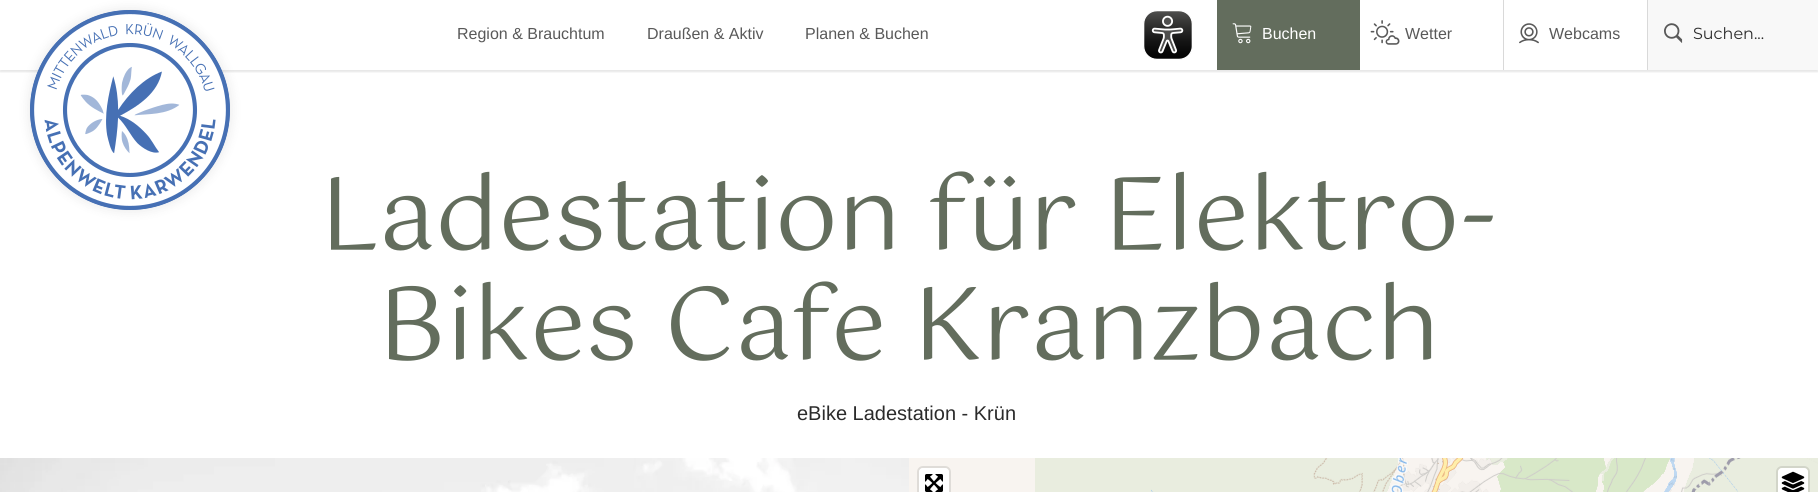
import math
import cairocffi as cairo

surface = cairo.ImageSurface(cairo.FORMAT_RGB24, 1818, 492)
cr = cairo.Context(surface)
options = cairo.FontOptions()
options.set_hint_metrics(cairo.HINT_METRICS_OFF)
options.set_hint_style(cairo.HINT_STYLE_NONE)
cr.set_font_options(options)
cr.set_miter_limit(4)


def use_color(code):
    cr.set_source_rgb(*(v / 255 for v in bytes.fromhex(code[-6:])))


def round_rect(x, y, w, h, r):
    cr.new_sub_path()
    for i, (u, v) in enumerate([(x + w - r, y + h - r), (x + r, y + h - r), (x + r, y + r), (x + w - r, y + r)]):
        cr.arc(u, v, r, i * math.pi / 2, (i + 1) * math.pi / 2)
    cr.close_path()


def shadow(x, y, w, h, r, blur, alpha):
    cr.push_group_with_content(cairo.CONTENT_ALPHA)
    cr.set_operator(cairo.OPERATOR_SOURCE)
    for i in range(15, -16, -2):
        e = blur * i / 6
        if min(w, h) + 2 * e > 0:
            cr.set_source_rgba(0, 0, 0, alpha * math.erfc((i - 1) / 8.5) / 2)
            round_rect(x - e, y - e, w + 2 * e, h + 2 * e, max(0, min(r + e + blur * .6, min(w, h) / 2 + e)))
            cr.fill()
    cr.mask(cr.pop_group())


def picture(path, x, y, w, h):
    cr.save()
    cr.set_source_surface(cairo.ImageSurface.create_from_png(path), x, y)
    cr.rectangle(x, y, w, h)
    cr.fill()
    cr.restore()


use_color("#ffffff")
cr.paint()
use_color("#000000")
shadow(30, 10, 200, 200, 100, 6, 0.1)
cr.save()
cr.rectangle(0, 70, 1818, 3)
cr.clip()
shadow(0, 2, 1818, 70, 0, 1, 0.1)
cr.restore()
use_color("#ffffff")
cr.arc(130, 110, 100, 0, 2 * math.pi)
cr.fill()
picture("img1.png", 30, 10, 200, 200)
cr.arc(130, 110, 99, 0, 2 * math.pi)
use_color("#4670b4")
cr.stroke()
cr.select_font_face("Liberation Sans")
cr.set_font_size(16)
use_color("#595959")
cr.move_to(457, 39)
cr.show_text("Region & Brauchtum")
cr.move_to(647, 39)
cr.show_text("Draußen & Aktiv")
cr.move_to(805, 39)
cr.show_text("Planen & Buchen")
picture("img2.png", 1143, 10, 50, 50)
use_color("#636d5d")
cr.rectangle(1217, 0, 143, 70)
cr.fill()
picture("img3.png", 1232, 23, 20, 21)
use_color("#ffffff")
cr.move_to(1262, 39)
cr.show_text("Buchen")
use_color("#d9d9d9")
cr.rectangle(1503, 0, 1, 70)
cr.fill()
picture("img4.png", 1370, 20, 30, 25)
use_color("#595959")
cr.move_to(1405, 39)
cr.show_text("Wetter")
use_color("#d9d9d9")
cr.rectangle(1647, 0, 1, 70)
cr.fill()
picture("img5.png", 1519, 23, 20, 21)
use_color("#595959")
cr.move_to(1549, 39)
cr.show_text("Webcams")
use_color("#f8f8f8")
cr.rectangle(1648, 0, 170, 70)
cr.fill()
picture("img6.png", 1664, 23, 19, 20)
cr.select_font_face("Montserrat")
use_color("#2b2b2b")
cr.move_to(1693, 39)
cr.show_text("Suchen...")
cr.select_font_face("Gotu")
cr.set_font_size(100)
use_color("#636d5d")
cr.move_to(320, 249)
cr.show_text("Ladestation für Elektro-")
cr.move_to(378, 359)
cr.show_text("Bikes Cafe Kranzbach")
cr.select_font_face("Liberation Sans")
cr.set_font_size(20)
use_color("#2b2b2b")
cr.move_to(797, 420)
cr.show_text("eBike Ladestation - Krün")
picture("img7.png", 0, 458, 909, 34)
picture("img8.png", 909, 458, 909, 34)
round_rect(918, 467, 32, 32, 5)
use_color("#dfdcd8")
cr.stroke()
use_color("#ffffff")
round_rect(919, 468, 30, 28, 4)
cr.fill()
picture("img9.png", 925, 474, 18, 18)
round_rect(1777, 467, 32, 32, 5)
use_color("#d2d5c9")
cr.stroke()
use_color("#ffffff")
round_rect(1778, 468, 30, 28, 4)
cr.fill()
picture("img10.png", 1781, 471, 24, 21)
surface.write_to_png("result.png")
